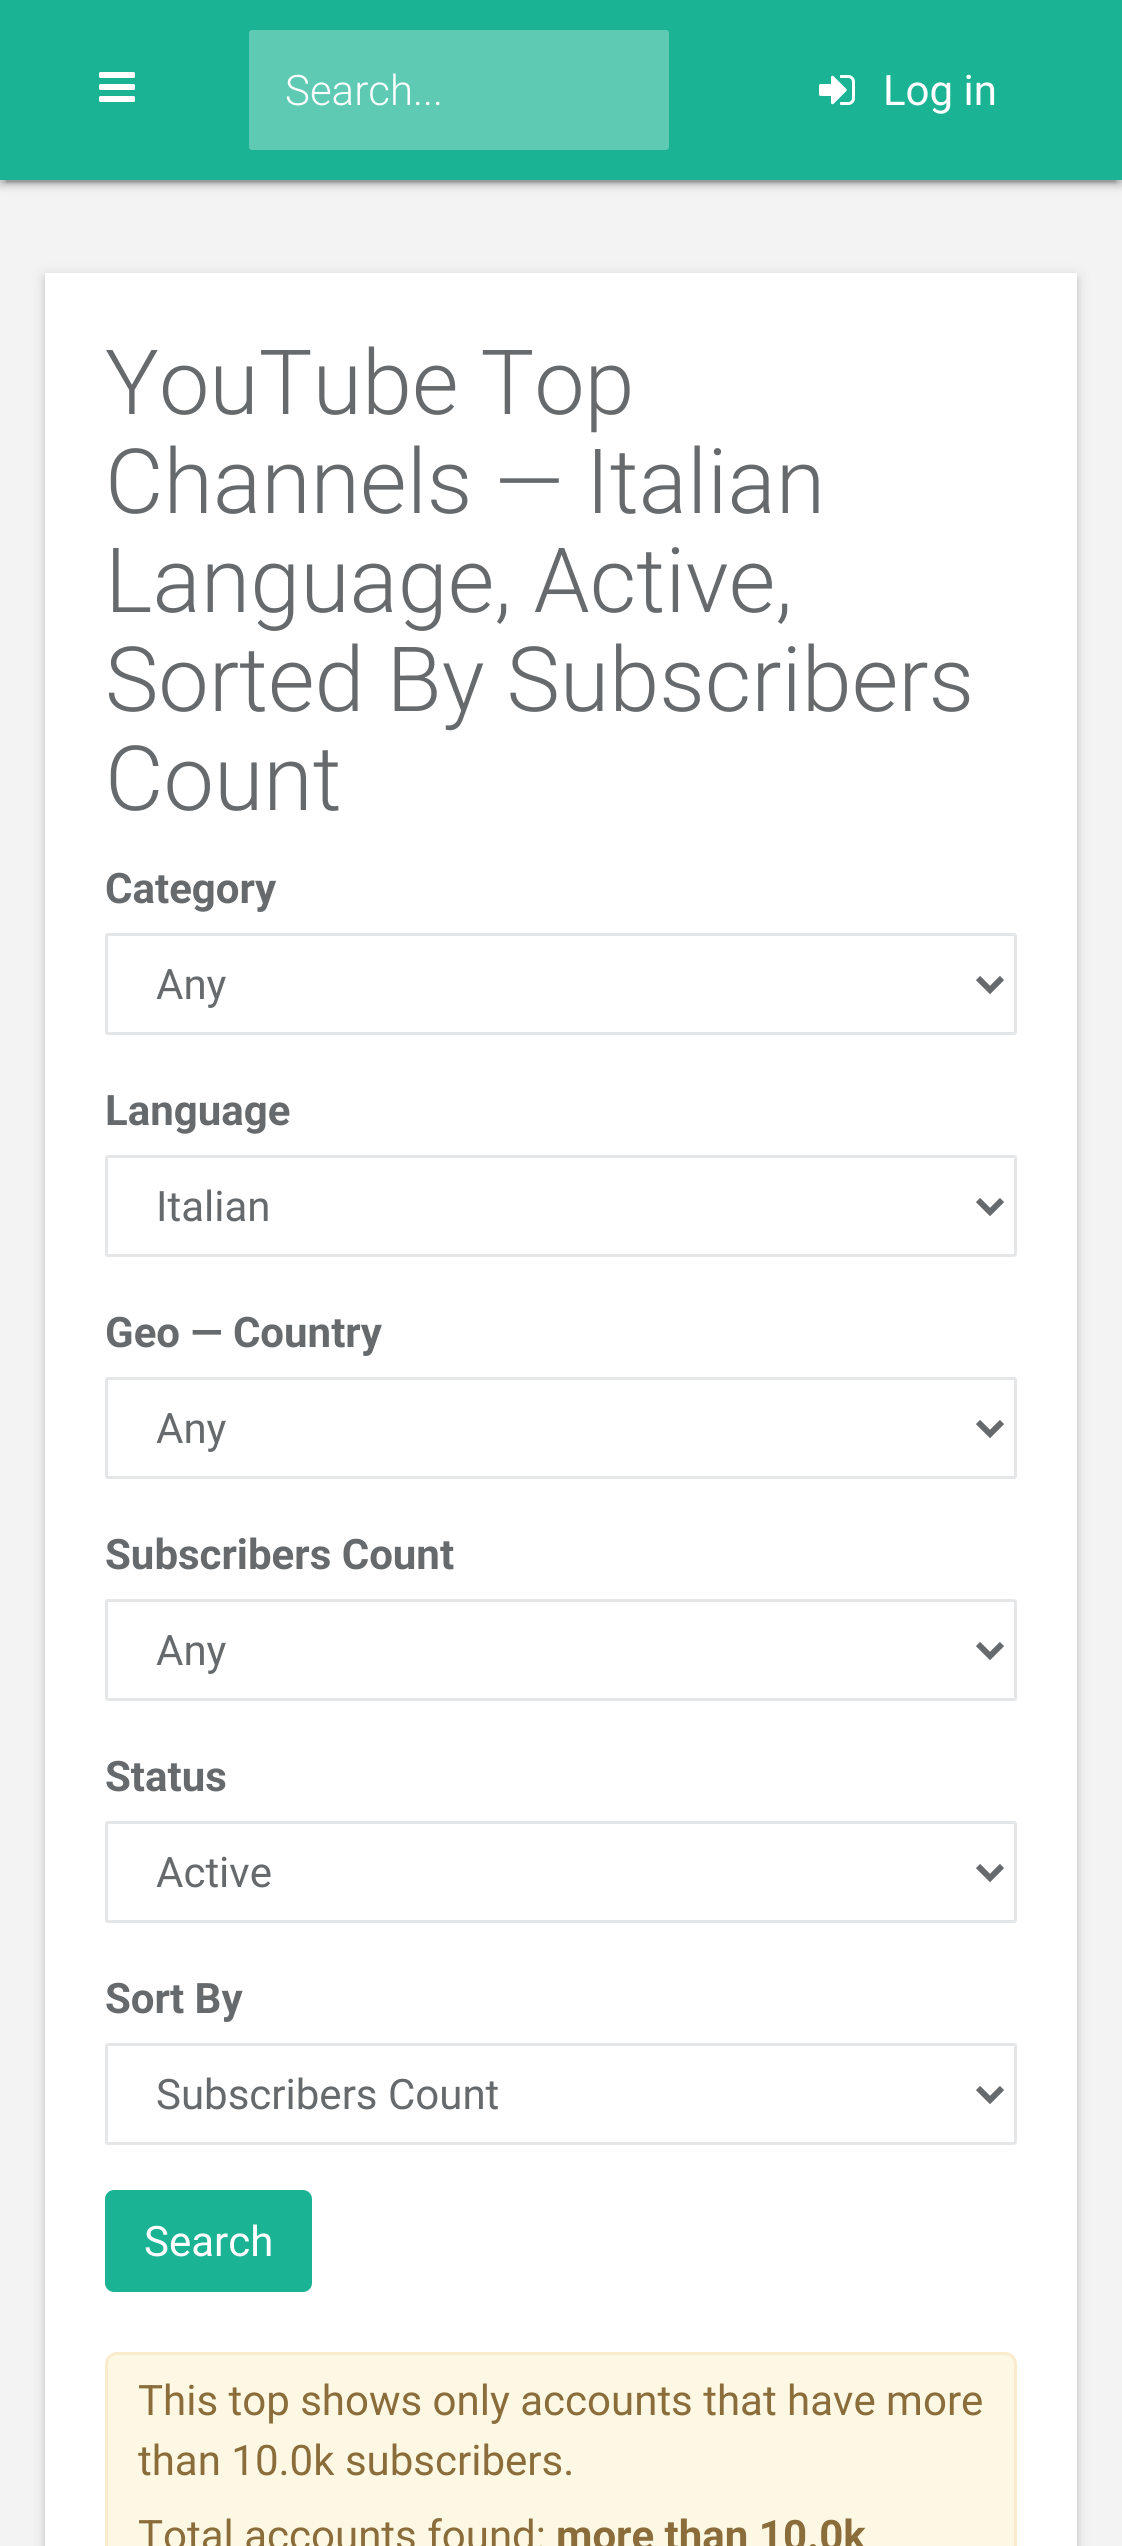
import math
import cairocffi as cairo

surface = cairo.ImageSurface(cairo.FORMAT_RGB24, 1122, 2546)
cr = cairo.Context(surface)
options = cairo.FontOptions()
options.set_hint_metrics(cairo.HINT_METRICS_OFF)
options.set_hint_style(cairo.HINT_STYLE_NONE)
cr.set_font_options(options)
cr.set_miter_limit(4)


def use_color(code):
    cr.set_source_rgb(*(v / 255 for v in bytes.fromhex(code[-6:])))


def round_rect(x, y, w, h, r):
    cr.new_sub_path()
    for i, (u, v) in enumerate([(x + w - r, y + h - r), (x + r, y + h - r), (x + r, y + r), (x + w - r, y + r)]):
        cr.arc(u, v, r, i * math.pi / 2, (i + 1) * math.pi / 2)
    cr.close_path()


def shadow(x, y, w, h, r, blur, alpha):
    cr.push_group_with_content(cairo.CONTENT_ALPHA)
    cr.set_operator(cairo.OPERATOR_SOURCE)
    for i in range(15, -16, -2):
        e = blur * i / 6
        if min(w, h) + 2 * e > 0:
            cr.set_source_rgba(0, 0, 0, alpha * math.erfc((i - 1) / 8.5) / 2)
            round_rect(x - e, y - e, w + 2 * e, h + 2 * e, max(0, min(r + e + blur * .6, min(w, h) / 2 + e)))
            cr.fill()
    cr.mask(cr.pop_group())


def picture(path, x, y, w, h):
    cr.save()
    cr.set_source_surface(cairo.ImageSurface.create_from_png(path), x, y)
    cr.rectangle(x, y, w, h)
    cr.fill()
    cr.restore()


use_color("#f3f3f4")
cr.paint()
use_color("#e7eaec")
cr.rectangle(0, 180, 1122, 3)
cr.fill()
use_color("#000000")
shadow(0, 3, 1122, 180, 0, 7.5, 0.12)
shadow(6, 15, 1110, 168, 0, 1.5, 0.2)
shadow(0, 6, 1122, 180, 0, 3, 0.14)
use_color("#1ab394")
cr.rectangle(0, 0, 1122, 180)
cr.fill()
picture("img1.png", 99, 72, 36, 30)
use_color("#5fcab4")
round_rect(249, 30, 420, 120, 3)
cr.fill()
cr.select_font_face("Roboto Light")
cr.set_font_size(42)
use_color("#ffffff")
cr.move_to(285, 105)
cr.show_text("Search...")
picture("img2.png", 819, 75, 36, 30)
cr.select_font_face("Roboto")
cr.move_to(883, 105)
cr.show_text("Log in")
use_color("#000000")
shadow(45, 276, 1032, 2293, 0, 7.5, 0.12)
shadow(45, 279, 1032, 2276, 0, 3, 0.14)
use_color("#ffffff")
cr.rectangle(45, 273, 1032, 2273)
cr.fill()
cr.select_font_face("Roboto Light")
cr.set_font_size(90)
use_color("#676a6c")
cr.move_to(105, 414)
cr.show_text("YouTube Top")
cr.move_to(105, 513)
cr.show_text("Channels — Italian")
cr.move_to(105, 612)
cr.show_text("Language, Active,")
cr.move_to(105, 711)
cr.show_text("Sorted By Subscribers")
cr.move_to(105, 810)
cr.show_text("Count")
cr.select_font_face("Roboto", cairo.FONT_SLANT_NORMAL, cairo.FONT_WEIGHT_BOLD)
cr.set_font_size(42)
cr.move_to(105, 903)
cr.show_text("Category")
round_rect(106.5, 934.5, 909, 99, 1.5)
use_color("#e5e6e7")
cr.set_line_width(3)
cr.stroke()
cr.new_path()
cr.move_to(978, 978)
cr.line_to(990, 990)
cr.line_to(1002, 978)
use_color("#676a6c")
cr.set_line_width(6)
cr.stroke()
cr.select_font_face("Roboto")
cr.move_to(156, 999)
cr.show_text("Any")
cr.select_font_face("Roboto", cairo.FONT_SLANT_NORMAL, cairo.FONT_WEIGHT_BOLD)
cr.move_to(105, 1125)
cr.show_text("Language")
round_rect(106.5, 1156.5, 909, 99, 1.5)
use_color("#e5e6e7")
cr.set_line_width(3)
cr.stroke()
cr.new_path()
cr.move_to(978, 1200)
cr.line_to(990, 1212)
cr.line_to(1002, 1200)
use_color("#676a6c")
cr.set_line_width(6)
cr.stroke()
cr.select_font_face("Roboto")
cr.move_to(156, 1221)
cr.show_text("Italian")
cr.select_font_face("Roboto", cairo.FONT_SLANT_NORMAL, cairo.FONT_WEIGHT_BOLD)
cr.move_to(105, 1347)
cr.show_text("Geo — Country")
round_rect(106.5, 1378.5, 909, 99, 1.5)
use_color("#e5e6e7")
cr.set_line_width(3)
cr.stroke()
cr.new_path()
cr.move_to(978, 1422)
cr.line_to(990, 1434)
cr.line_to(1002, 1422)
use_color("#676a6c")
cr.set_line_width(6)
cr.stroke()
cr.select_font_face("Roboto")
cr.move_to(156, 1443)
cr.show_text("Any")
cr.select_font_face("Roboto", cairo.FONT_SLANT_NORMAL, cairo.FONT_WEIGHT_BOLD)
cr.move_to(105, 1569)
cr.show_text("Subscribers Count")
round_rect(106.5, 1600.5, 909, 99, 1.5)
use_color("#e5e6e7")
cr.set_line_width(3)
cr.stroke()
cr.new_path()
cr.move_to(978, 1644)
cr.line_to(990, 1656)
cr.line_to(1002, 1644)
use_color("#676a6c")
cr.set_line_width(6)
cr.stroke()
cr.select_font_face("Roboto")
cr.move_to(156, 1665)
cr.show_text("Any")
cr.select_font_face("Roboto", cairo.FONT_SLANT_NORMAL, cairo.FONT_WEIGHT_BOLD)
cr.move_to(105, 1791)
cr.show_text("Status")
round_rect(106.5, 1822.5, 909, 99, 1.5)
use_color("#e5e6e7")
cr.set_line_width(3)
cr.stroke()
cr.new_path()
cr.move_to(978, 1866)
cr.line_to(990, 1878)
cr.line_to(1002, 1866)
use_color("#676a6c")
cr.set_line_width(6)
cr.stroke()
cr.select_font_face("Roboto")
cr.move_to(156, 1887)
cr.show_text("Active")
cr.select_font_face("Roboto", cairo.FONT_SLANT_NORMAL, cairo.FONT_WEIGHT_BOLD)
cr.move_to(105, 2013)
cr.show_text("Sort By")
round_rect(106.5, 2044.5, 909, 99, 1.5)
use_color("#e5e6e7")
cr.set_line_width(3)
cr.stroke()
cr.new_path()
cr.move_to(978, 2088)
cr.line_to(990, 2100)
cr.line_to(1002, 2088)
use_color("#676a6c")
cr.set_line_width(6)
cr.stroke()
cr.select_font_face("Roboto")
cr.move_to(156, 2109)
cr.show_text("Subscribers Count")
use_color("#1ab394")
round_rect(106.5, 2191.5, 204, 99, 7.5)
cr.fill_preserve()
cr.set_line_width(3)
cr.stroke()
use_color("#ffffff")
cr.move_to(144, 2256)
cr.show_text("Search")
use_color("#fcf8e3")
round_rect(106.5, 2353.5, 909, 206, 10.5)
cr.fill_preserve()
use_color("#faebcc")
cr.stroke()
use_color("#8a6d3b")
cr.move_to(138, 2415)
cr.show_text("This top shows only accounts that have more")
cr.move_to(138, 2475)
cr.show_text("than 10.0k subscribers.")
cr.move_to(138, 2550)
cr.show_text("Total accounts found:")
cr.select_font_face("Roboto", cairo.FONT_SLANT_NORMAL, cairo.FONT_WEIGHT_BOLD)
cr.move_to(556, 2550)
cr.show_text("more than 10.0k")
surface.write_to_png("result.png")
